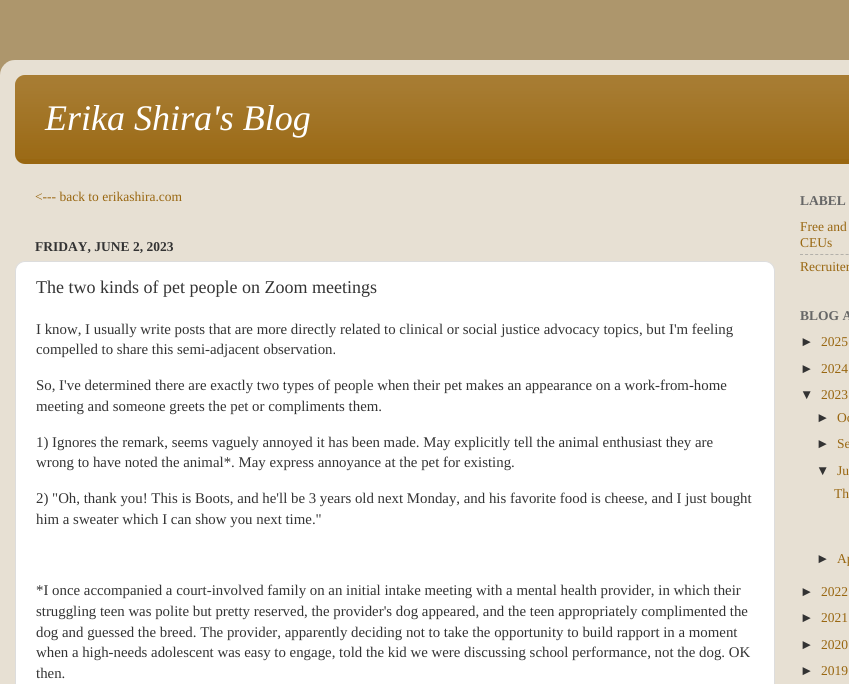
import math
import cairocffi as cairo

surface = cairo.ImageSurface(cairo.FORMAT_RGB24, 849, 684)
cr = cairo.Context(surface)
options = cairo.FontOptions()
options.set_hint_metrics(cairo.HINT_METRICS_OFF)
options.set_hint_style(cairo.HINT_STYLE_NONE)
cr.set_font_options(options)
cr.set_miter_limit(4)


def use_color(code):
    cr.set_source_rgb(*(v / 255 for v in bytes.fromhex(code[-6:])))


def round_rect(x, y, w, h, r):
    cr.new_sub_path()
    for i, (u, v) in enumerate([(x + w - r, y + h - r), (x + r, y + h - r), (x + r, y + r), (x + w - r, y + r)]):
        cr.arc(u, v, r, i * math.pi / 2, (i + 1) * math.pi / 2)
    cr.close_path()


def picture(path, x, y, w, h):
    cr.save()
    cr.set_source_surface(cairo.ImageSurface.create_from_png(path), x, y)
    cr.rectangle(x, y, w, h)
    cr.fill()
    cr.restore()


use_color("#ad966c")
cr.paint()
picture("img1.png", 0, 60, 849, 624)
use_color("#996711")
round_rect(15, 75, 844, 89, 10)
cr.fill()
picture("img2.png", 15, 75, 834, 84)
cr.select_font_face("Liberation Serif", cairo.FONT_SLANT_ITALIC)
cr.set_font_size(36)
use_color("#ffffff")
cr.move_to(45, 130)
cr.show_text("Erika Shira's Blog")
cr.select_font_face("Liberation Serif")
cr.set_font_size(13.5)
use_color("#996711")
cr.move_to(35, 201)
cr.show_text("<--- back to erikashira.com")
cr.select_font_face("Liberation Serif", cairo.FONT_SLANT_NORMAL, cairo.FONT_WEIGHT_BOLD)
use_color("#333333")
cr.move_to(35, 251)
cr.show_text("FRIDAY, JUNE 2, 2023")
use_color("#ffffff")
round_rect(15.5, 261.5, 759, 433, 9.5)
cr.fill_preserve()
use_color("#dddddd")
cr.set_line_width(1)
cr.stroke()
cr.select_font_face("Liberation Serif")
cr.set_font_size(18)
use_color("#333333")
cr.move_to(36, 293)
cr.show_text("The two kinds of pet people on Zoom meetings")
cr.set_font_size(14.85)
cr.move_to(36, 334)
cr.show_text("I know, I usually write posts that are more directly related to clinical or social justice advocacy topics, but I'm feeling")
cr.move_to(36, 354)
cr.show_text("compelled to share this semi-adjacent observation.")
cr.move_to(36, 390)
cr.show_text("So, I've determined there are exactly two types of people when their pet makes an appearance on a work-from-home")
cr.move_to(36, 411)
cr.show_text("meeting and someone greets the pet or compliments them.")
cr.move_to(36, 447)
cr.show_text("1) Ignores the remark, seems vaguely annoyed it has been made. May explicitly tell the animal enthusiast they are")
cr.move_to(36, 467)
cr.show_text("wrong to have noted the animal*. May express annoyance at the pet for existing.")
cr.move_to(36, 503)
cr.show_text("2) \"Oh, thank you! This is Boots, and he'll be 3 years old next Monday, and his favorite food is cheese, and I just bought")
cr.move_to(36, 524)
cr.show_text("him a sweater which I can show you next time.\"")
cr.move_to(36, 595)
cr.show_text("*I once accompanied a court-involved family on an initial intake meeting with a mental health provider, in which their")
cr.move_to(36, 616)
cr.show_text("struggling teen was polite but pretty reserved, the provider's dog appeared, and the teen appropriately complimented the")
cr.move_to(36, 637)
cr.show_text("dog and guessed the breed. The provider, apparently deciding not to take the opportunity to build rapport in a moment")
cr.move_to(36, 657)
cr.show_text("when a high-needs adolescent was easy to engage, told the kid we were discussing school performance, not the dog. OK")
cr.move_to(36, 678)
cr.show_text("then.")
cr.select_font_face("Liberation Serif", cairo.FONT_SLANT_NORMAL, cairo.FONT_WEIGHT_BOLD)
cr.set_font_size(13.5)
use_color("#666666")
cr.move_to(800, 205)
cr.show_text("LABEL")
cr.select_font_face("Liberation Serif")
use_color("#996711")
cr.move_to(800, 231)
cr.show_text("Free and")
cr.move_to(800, 247)
cr.show_text("CEUs")
cr.new_path()
cr.move_to(800, 254.5)
cr.line_to(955, 254.5)
use_color("#b3b0aa")
cr.set_dash([3, 2.07])
cr.stroke()
use_color("#996711")
cr.move_to(800, 271)
cr.show_text("Recruiter")
cr.select_font_face("Liberation Serif", cairo.FONT_SLANT_NORMAL, cairo.FONT_WEIGHT_BOLD)
use_color("#666666")
cr.move_to(800, 320)
cr.show_text("BLOG A")
cr.select_font_face("Liberation Sans")
use_color("#333333")
cr.move_to(800, 346)
cr.show_text("►")
cr.select_font_face("Liberation Serif")
use_color("#996711")
cr.move_to(821, 346)
cr.show_text("2025")
cr.select_font_face("Liberation Sans")
use_color("#333333")
cr.move_to(800, 373)
cr.show_text("►")
cr.select_font_face("Liberation Serif")
use_color("#996711")
cr.move_to(821, 373)
cr.show_text("2024")
cr.select_font_face("Liberation Sans")
use_color("#333333")
cr.move_to(800, 399)
cr.show_text("▼")
cr.select_font_face("Liberation Serif")
use_color("#996711")
cr.move_to(821, 399)
cr.show_text("2023")
cr.select_font_face("Liberation Sans")
use_color("#333333")
cr.move_to(816, 422)
cr.show_text("►")
cr.select_font_face("Liberation Serif")
use_color("#996711")
cr.move_to(837, 422)
cr.show_text("Oc")
cr.select_font_face("Liberation Sans")
use_color("#333333")
cr.move_to(816, 448)
cr.show_text("►")
cr.select_font_face("Liberation Serif")
use_color("#996711")
cr.move_to(837, 448)
cr.show_text("Se")
cr.select_font_face("Liberation Sans")
use_color("#333333")
cr.move_to(816, 475)
cr.show_text("▼")
cr.select_font_face("Liberation Serif")
use_color("#996711")
cr.move_to(837, 475)
cr.show_text("Ju")
cr.move_to(834, 498)
cr.show_text("Th")
cr.select_font_face("Liberation Sans")
use_color("#333333")
cr.move_to(816, 563)
cr.show_text("►")
cr.select_font_face("Liberation Serif")
use_color("#996711")
cr.move_to(837, 563)
cr.show_text("Ap")
cr.select_font_face("Liberation Sans")
use_color("#333333")
cr.move_to(800, 596)
cr.show_text("►")
cr.select_font_face("Liberation Serif")
use_color("#996711")
cr.move_to(821, 596)
cr.show_text("2022")
cr.select_font_face("Liberation Sans")
use_color("#333333")
cr.move_to(800, 622)
cr.show_text("►")
cr.select_font_face("Liberation Serif")
use_color("#996711")
cr.move_to(821, 622)
cr.show_text("2021")
cr.select_font_face("Liberation Sans")
use_color("#333333")
cr.move_to(800, 649)
cr.show_text("►")
cr.select_font_face("Liberation Serif")
use_color("#996711")
cr.move_to(821, 649)
cr.show_text("2020")
cr.select_font_face("Liberation Sans")
use_color("#333333")
cr.move_to(800, 675)
cr.show_text("►")
cr.select_font_face("Liberation Serif")
use_color("#996711")
cr.move_to(821, 675)
cr.show_text("2019")
surface.write_to_png("result.png")
